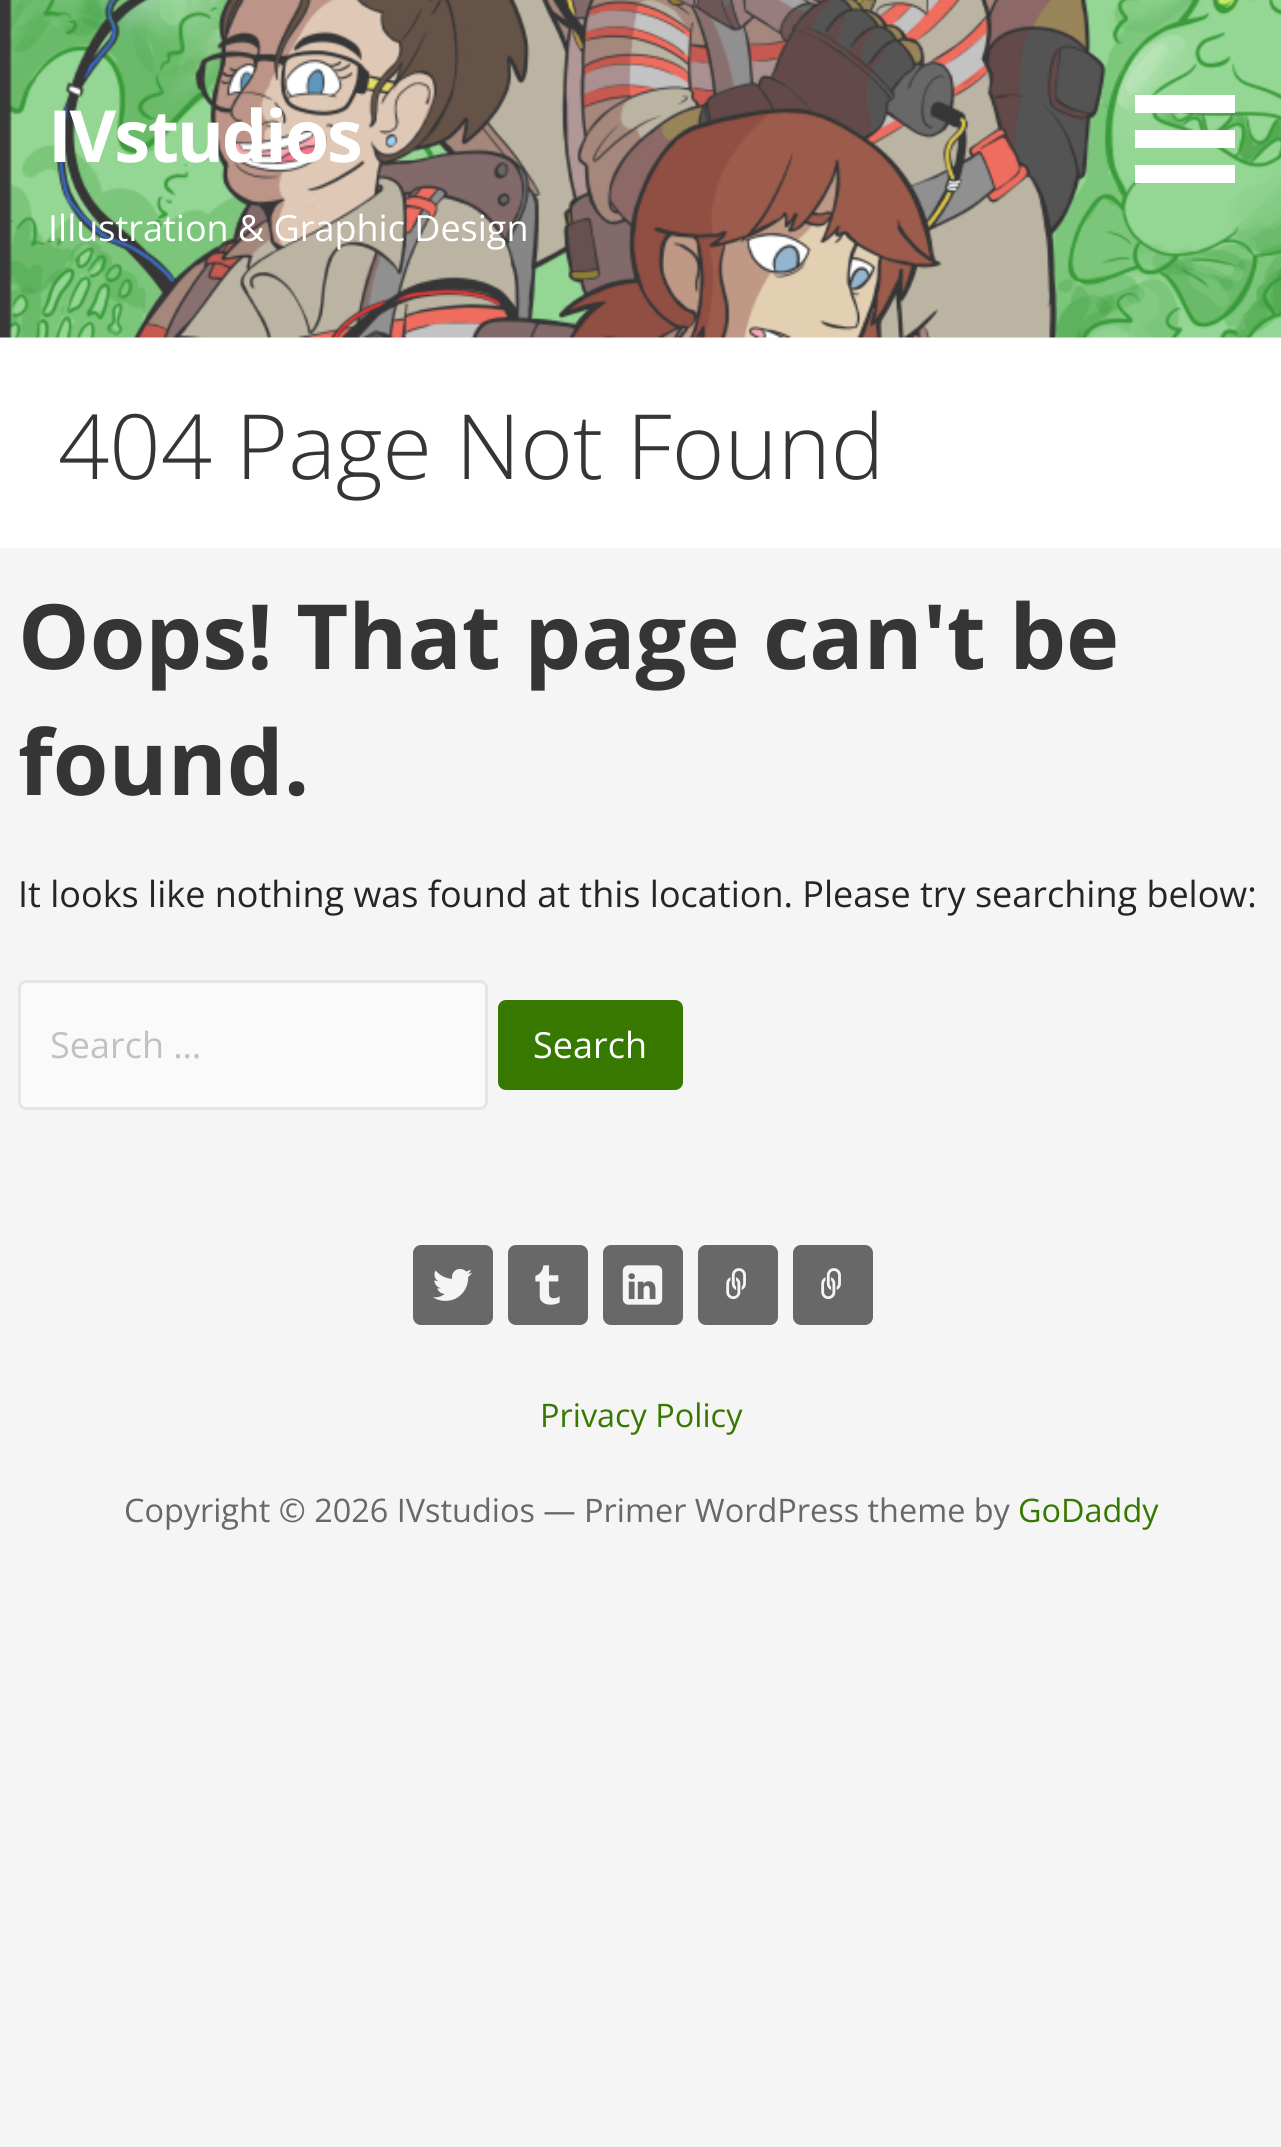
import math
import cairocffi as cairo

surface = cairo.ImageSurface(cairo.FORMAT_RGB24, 1281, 2147)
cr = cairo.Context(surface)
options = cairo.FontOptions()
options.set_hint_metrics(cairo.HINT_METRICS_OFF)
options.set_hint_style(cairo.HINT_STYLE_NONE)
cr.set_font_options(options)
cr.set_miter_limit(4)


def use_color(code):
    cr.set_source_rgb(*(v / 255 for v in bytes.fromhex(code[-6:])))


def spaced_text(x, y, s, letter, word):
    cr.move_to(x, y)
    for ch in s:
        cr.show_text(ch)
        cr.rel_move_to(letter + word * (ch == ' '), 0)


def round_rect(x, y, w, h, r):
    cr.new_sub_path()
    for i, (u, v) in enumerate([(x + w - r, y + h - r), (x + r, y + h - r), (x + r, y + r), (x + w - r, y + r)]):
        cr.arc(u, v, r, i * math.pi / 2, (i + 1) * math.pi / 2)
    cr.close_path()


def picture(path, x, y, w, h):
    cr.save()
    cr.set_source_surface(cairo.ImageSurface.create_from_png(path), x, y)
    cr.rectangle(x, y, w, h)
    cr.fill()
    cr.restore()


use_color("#f5f5f5")
cr.paint()
use_color("#ffffff")
cr.rectangle(0, 337, 1281, 211)
cr.fill()
picture("img1.png", 0, 0, 1281, 338)
cr.select_font_face("Open Sans", cairo.FONT_SLANT_NORMAL, cairo.FONT_WEIGHT_BOLD)
cr.set_font_size(72)
spaced_text(48, 162, "IVstudios", -2.25, 0)
cr.select_font_face("Open Sans")
cr.set_font_size(36)
cr.move_to(48, 241)
cr.show_text("Illustration & Graphic Design")
cr.rectangle(1135, 95, 100, 18)
cr.fill()
cr.rectangle(1135, 130, 100, 18)
cr.fill()
cr.rectangle(1135, 165, 100, 18)
cr.fill()
cr.select_font_face("Open Sans Light")
cr.set_font_size(90)
use_color("#353535")
cr.move_to(58, 479)
cr.show_text("404 Page Not Found")
cr.select_font_face("Open Sans", cairo.FONT_SLANT_NORMAL, cairo.FONT_WEIGHT_BOLD)
cr.move_to(18, 669)
cr.show_text("Oops! That page can't be")
cr.move_to(18, 795)
cr.show_text("found.")
cr.select_font_face("Open Sans")
cr.set_font_size(36)
use_color("#252525")
cr.move_to(18, 907)
cr.show_text("It looks like nothing was found at this location. Please try searching below:")
use_color("#fafafa")
round_rect(19.5, 981.5, 467, 127, 6.5)
cr.fill_preserve()
use_color("#e5e5e5")
cr.set_line_width(3)
cr.stroke()
use_color("#c1c1c1")
cr.move_to(50, 1058)
cr.show_text("Search …")
use_color("#377900")
round_rect(498, 1000, 185, 90, 8)
cr.fill()
use_color("#ffffff")
cr.move_to(533, 1058)
cr.show_text("Search")
use_color("#686868")
round_rect(413, 1245, 80, 80, 8)
cr.fill()
picture("img2.png", 433, 1268, 39, 33)
round_rect(508, 1245, 80, 80, 8)
cr.fill()
picture("img3.png", 535, 1265, 25, 40)
round_rect(603, 1245, 80, 80, 8)
cr.fill()
picture("img4.png", 622, 1265, 41, 40)
round_rect(698, 1245, 80, 80, 8)
cr.fill()
picture("img5.png", 726, 1268, 20, 32)
round_rect(793, 1245, 80, 80, 8)
cr.fill()
picture("img5.png", 821, 1268, 20, 32)
cr.set_font_size(32.4)
use_color("#377900")
cr.move_to(540, 1427)
cr.show_text("Privacy Policy")
use_color("#686868")
cr.move_to(124, 1522)
cr.show_text("Copyright © 2026 IVstudios — Primer WordPress theme by")
use_color("#377900")
cr.move_to(1018, 1522)
cr.show_text("GoDaddy")
surface.write_to_png("result.png")
